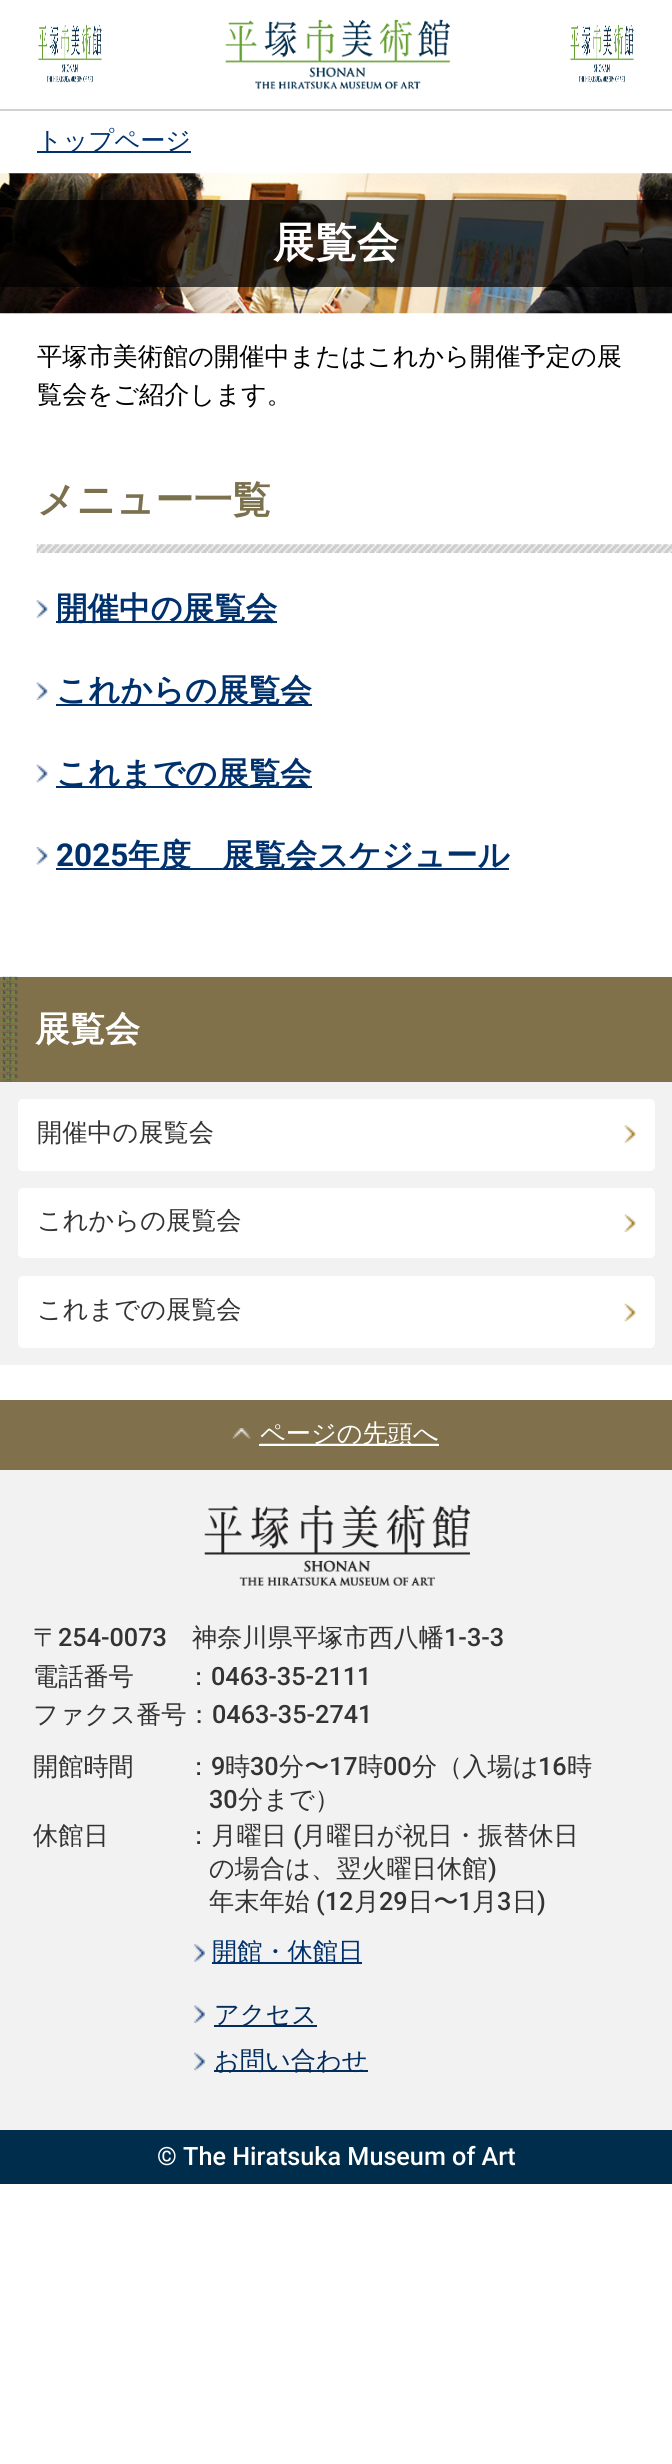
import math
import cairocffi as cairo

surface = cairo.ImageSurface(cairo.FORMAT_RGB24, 672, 2464)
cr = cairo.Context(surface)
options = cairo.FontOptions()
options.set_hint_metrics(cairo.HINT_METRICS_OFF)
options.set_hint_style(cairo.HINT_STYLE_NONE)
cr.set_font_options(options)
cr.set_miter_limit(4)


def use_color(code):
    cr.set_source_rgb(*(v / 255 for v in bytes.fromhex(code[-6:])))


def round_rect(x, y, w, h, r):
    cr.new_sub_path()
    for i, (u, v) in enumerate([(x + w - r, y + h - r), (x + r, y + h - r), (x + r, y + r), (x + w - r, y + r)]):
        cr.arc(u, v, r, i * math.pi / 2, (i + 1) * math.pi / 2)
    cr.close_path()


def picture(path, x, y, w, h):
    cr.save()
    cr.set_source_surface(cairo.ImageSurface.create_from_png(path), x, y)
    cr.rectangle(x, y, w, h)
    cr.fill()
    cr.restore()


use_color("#ffffff")
cr.paint()
use_color("#d1d1d1")
cr.rectangle(0, 109, 672, 2)
cr.fill()
picture("img1.png", 38, 24, 64, 59)
picture("img2.png", 225, 19, 225, 71)
picture("img1.png", 570, 24, 64, 59)
use_color("#00316d")
cr.rectangle(37, 151, 154, 2)
cr.fill()
cr.select_font_face("WenQuanYi Zen Hei Medium")
cr.set_font_size(25.2)
cr.move_to(37, 149)
cr.show_text("トップページ")
picture("img3.png", 0, 173, 672, 141)
cr.set_source_rgba(0, 0, 0, 0.7)
cr.rectangle(0, 200, 672, 87)
cr.fill()
cr.select_font_face("WenQuanYi Zen Hei", cairo.FONT_SLANT_NORMAL, cairo.FONT_WEIGHT_BOLD)
cr.set_font_size(42)
use_color("#ffffff")
cr.move_to(273, 257)
cr.show_text("展覧会")
cr.select_font_face("WenQuanYi Zen Hei Medium")
cr.set_font_size(25.2)
use_color("#000000")
cr.move_to(37, 365)
cr.show_text("平塚市美術館の開催中またはこれから開催予定の展")
cr.move_to(37, 403)
cr.show_text("覧会をご紹介します。")
picture("img4.png", 36, 544, 636, 9)
cr.select_font_face("WenQuanYi Zen Hei", cairo.FONT_SLANT_NORMAL, cairo.FONT_WEIGHT_BOLD)
cr.set_font_size(38.5)
use_color("#7b714e")
cr.move_to(37, 513)
cr.show_text("メニュー一覧")
picture("img5.png", 36, 600, 12, 18)
use_color("#00316d")
cr.rectangle(56, 621, 221, 2)
cr.fill()
cr.set_font_size(31.5)
cr.move_to(56, 619)
cr.show_text("開催中の展覧会")
picture("img6.png", 36, 682, 12, 18)
cr.rectangle(56, 704, 256, 2)
cr.fill()
cr.move_to(56, 701)
cr.show_text("これからの展覧会")
picture("img7.png", 36, 764, 12, 19)
cr.rectangle(56, 786, 256, 2)
cr.fill()
cr.move_to(56, 784)
cr.show_text("これまでの展覧会")
picture("img8.png", 36, 847, 12, 18)
cr.select_font_face("Roboto", cairo.FONT_SLANT_NORMAL, cairo.FONT_WEIGHT_BOLD)
cr.move_to(56, 866)
cr.show_text("2025")
cr.rectangle(56, 868, 453, 2)
cr.fill()
cr.select_font_face("WenQuanYi Zen Hei", cairo.FONT_SLANT_NORMAL, cairo.FONT_WEIGHT_BOLD)
cr.move_to(128, 866)
cr.show_text("年度　展覧会スケジュール")
use_color("#f2f2f2")
cr.rectangle(0, 1082, 672, 283)
cr.fill()
use_color("#80714b")
cr.rectangle(0, 977, 672, 105)
cr.fill()
picture("img9.png", 0, 976, 18, 106)
cr.set_font_size(35)
use_color("#ffffff")
cr.move_to(35, 1041)
cr.show_text("展覧会")
round_rect(18, 1099, 637, 72, 5)
cr.fill()
picture("img10.png", 624, 1125, 12, 18)
cr.select_font_face("WenQuanYi Zen Hei Medium")
cr.set_font_size(25.2)
use_color("#333333")
cr.move_to(37, 1141)
cr.show_text("開催中の展覧会")
use_color("#ffffff")
round_rect(18, 1188, 637, 70, 5)
cr.fill()
picture("img11.png", 624, 1214, 12, 18)
use_color("#333333")
cr.move_to(37, 1229)
cr.show_text("これからの展覧会")
use_color("#ffffff")
round_rect(18, 1276, 637, 72, 5)
cr.fill()
picture("img12.png", 624, 1303, 12, 19)
use_color("#333333")
cr.move_to(37, 1318)
cr.show_text("これまでの展覧会")
use_color("#80704c")
cr.rectangle(0, 1400, 672, 70)
cr.fill()
use_color("#ffffff")
cr.rectangle(259, 1444, 180, 2)
cr.fill()
picture("img13.png", 232, 1428, 207, 16)
cr.move_to(260, 1442)
cr.show_text("ページの先頭へ")
use_color("#f2f2f2")
cr.rectangle(0, 1470, 672, 660)
cr.fill()
picture("img14.png", 204, 1505, 266, 81)
use_color("#333333")
cr.move_to(33, 1646)
cr.show_text("〒")
cr.select_font_face("Roboto Medium")
cr.move_to(58, 1646)
cr.show_text("254-0073")
cr.select_font_face("WenQuanYi Zen Hei Medium")
cr.move_to(192, 1646)
cr.show_text("神奈川県平塚市西八幡")
cr.select_font_face("Roboto Medium")
cr.move_to(444, 1646)
cr.show_text("1-3-3")
cr.select_font_face("WenQuanYi Zen Hei Medium")
cr.move_to(33, 1685)
cr.show_text("電話番号")
cr.move_to(186, 1685)
cr.show_text("：")
cr.select_font_face("Roboto Medium")
cr.move_to(211, 1685)
cr.show_text("0463-35-2111")
cr.select_font_face("WenQuanYi Zen Hei Medium")
cr.move_to(33, 1723)
cr.show_text("ファクス番号：")
cr.select_font_face("Roboto Medium")
cr.move_to(212, 1723)
cr.show_text("0463-35-2741")
cr.select_font_face("WenQuanYi Zen Hei Medium")
cr.move_to(33, 1775)
cr.show_text("開館時間")
cr.move_to(186, 1775)
cr.show_text("：")
cr.select_font_face("Roboto Medium")
cr.move_to(211, 1775)
cr.show_text("9")
cr.select_font_face("WenQuanYi Zen Hei Medium")
cr.move_to(225, 1775)
cr.show_text("時")
cr.select_font_face("Roboto Medium")
cr.move_to(250, 1775)
cr.show_text("30")
cr.select_font_face("WenQuanYi Zen Hei Medium")
cr.move_to(279, 1775)
cr.show_text("分〜")
cr.select_font_face("Roboto Medium")
cr.move_to(329, 1775)
cr.show_text("17")
cr.select_font_face("WenQuanYi Zen Hei Medium")
cr.move_to(358, 1775)
cr.show_text("時")
cr.select_font_face("Roboto Medium")
cr.move_to(383, 1775)
cr.show_text("00")
cr.select_font_face("WenQuanYi Zen Hei Medium")
cr.move_to(412, 1775)
cr.show_text("分（入場は")
cr.select_font_face("Roboto Medium")
cr.move_to(538, 1775)
cr.show_text("16")
cr.select_font_face("WenQuanYi Zen Hei Medium")
cr.move_to(567, 1775)
cr.show_text("時")
cr.select_font_face("Roboto Medium")
cr.move_to(209, 1808)
cr.show_text("30")
cr.select_font_face("WenQuanYi Zen Hei Medium")
cr.move_to(238, 1808)
cr.show_text("分まで）")
cr.move_to(33, 1844)
cr.show_text("休館日")
cr.move_to(186, 1844)
cr.show_text("：月曜日")
cr.select_font_face("Roboto Medium")
cr.move_to(293, 1844)
cr.show_text("(")
cr.select_font_face("WenQuanYi Zen Hei Medium")
cr.move_to(301, 1844)
cr.show_text("月曜日が祝日・振替休日")
cr.move_to(209, 1877)
cr.show_text("の場合は、翌火曜日休館")
cr.select_font_face("Roboto Medium")
cr.move_to(488, 1877)
cr.show_text(")")
cr.select_font_face("WenQuanYi Zen Hei Medium")
cr.move_to(209, 1910)
cr.show_text("年末年始")
cr.select_font_face("Roboto Medium")
cr.move_to(316, 1910)
cr.show_text("(12")
cr.select_font_face("WenQuanYi Zen Hei Medium")
cr.move_to(354, 1910)
cr.show_text("月")
cr.select_font_face("Roboto Medium")
cr.move_to(379, 1910)
cr.show_text("29")
cr.select_font_face("WenQuanYi Zen Hei Medium")
cr.move_to(408, 1910)
cr.show_text("日〜")
cr.select_font_face("Roboto Medium")
cr.move_to(458, 1910)
cr.show_text("1")
cr.select_font_face("WenQuanYi Zen Hei Medium")
cr.move_to(472, 1910)
cr.show_text("月")
cr.select_font_face("Roboto Medium")
cr.move_to(497, 1910)
cr.show_text("3")
cr.select_font_face("WenQuanYi Zen Hei Medium")
cr.move_to(512, 1910)
cr.show_text("日")
cr.select_font_face("Roboto Medium")
cr.move_to(537, 1910)
cr.show_text(")")
picture("img15.png", 194, 1944, 11, 18)
use_color("#00316d")
cr.rectangle(212, 1962, 150, 2)
cr.fill()
cr.select_font_face("WenQuanYi Zen Hei Medium")
cr.move_to(212, 1960)
cr.show_text("開館・休館日")
picture("img16.png", 194, 2005, 11, 18)
use_color("#042c5d")
cr.rectangle(214, 2025, 103, 2)
cr.fill()
cr.move_to(214, 2023)
cr.show_text("アクセス")
picture("img17.png", 194, 2052, 11, 19)
cr.rectangle(214, 2070, 154, 2)
cr.fill()
cr.move_to(214, 2069)
cr.show_text("お問い合わせ")
use_color("#002d4c")
cr.rectangle(0, 2130, 672, 54)
cr.fill()
cr.select_font_face("Roboto Medium")
use_color("#ffffff")
cr.move_to(157, 2165)
cr.show_text("© The Hiratsuka Museum of Art")
surface.write_to_png("result.png")
